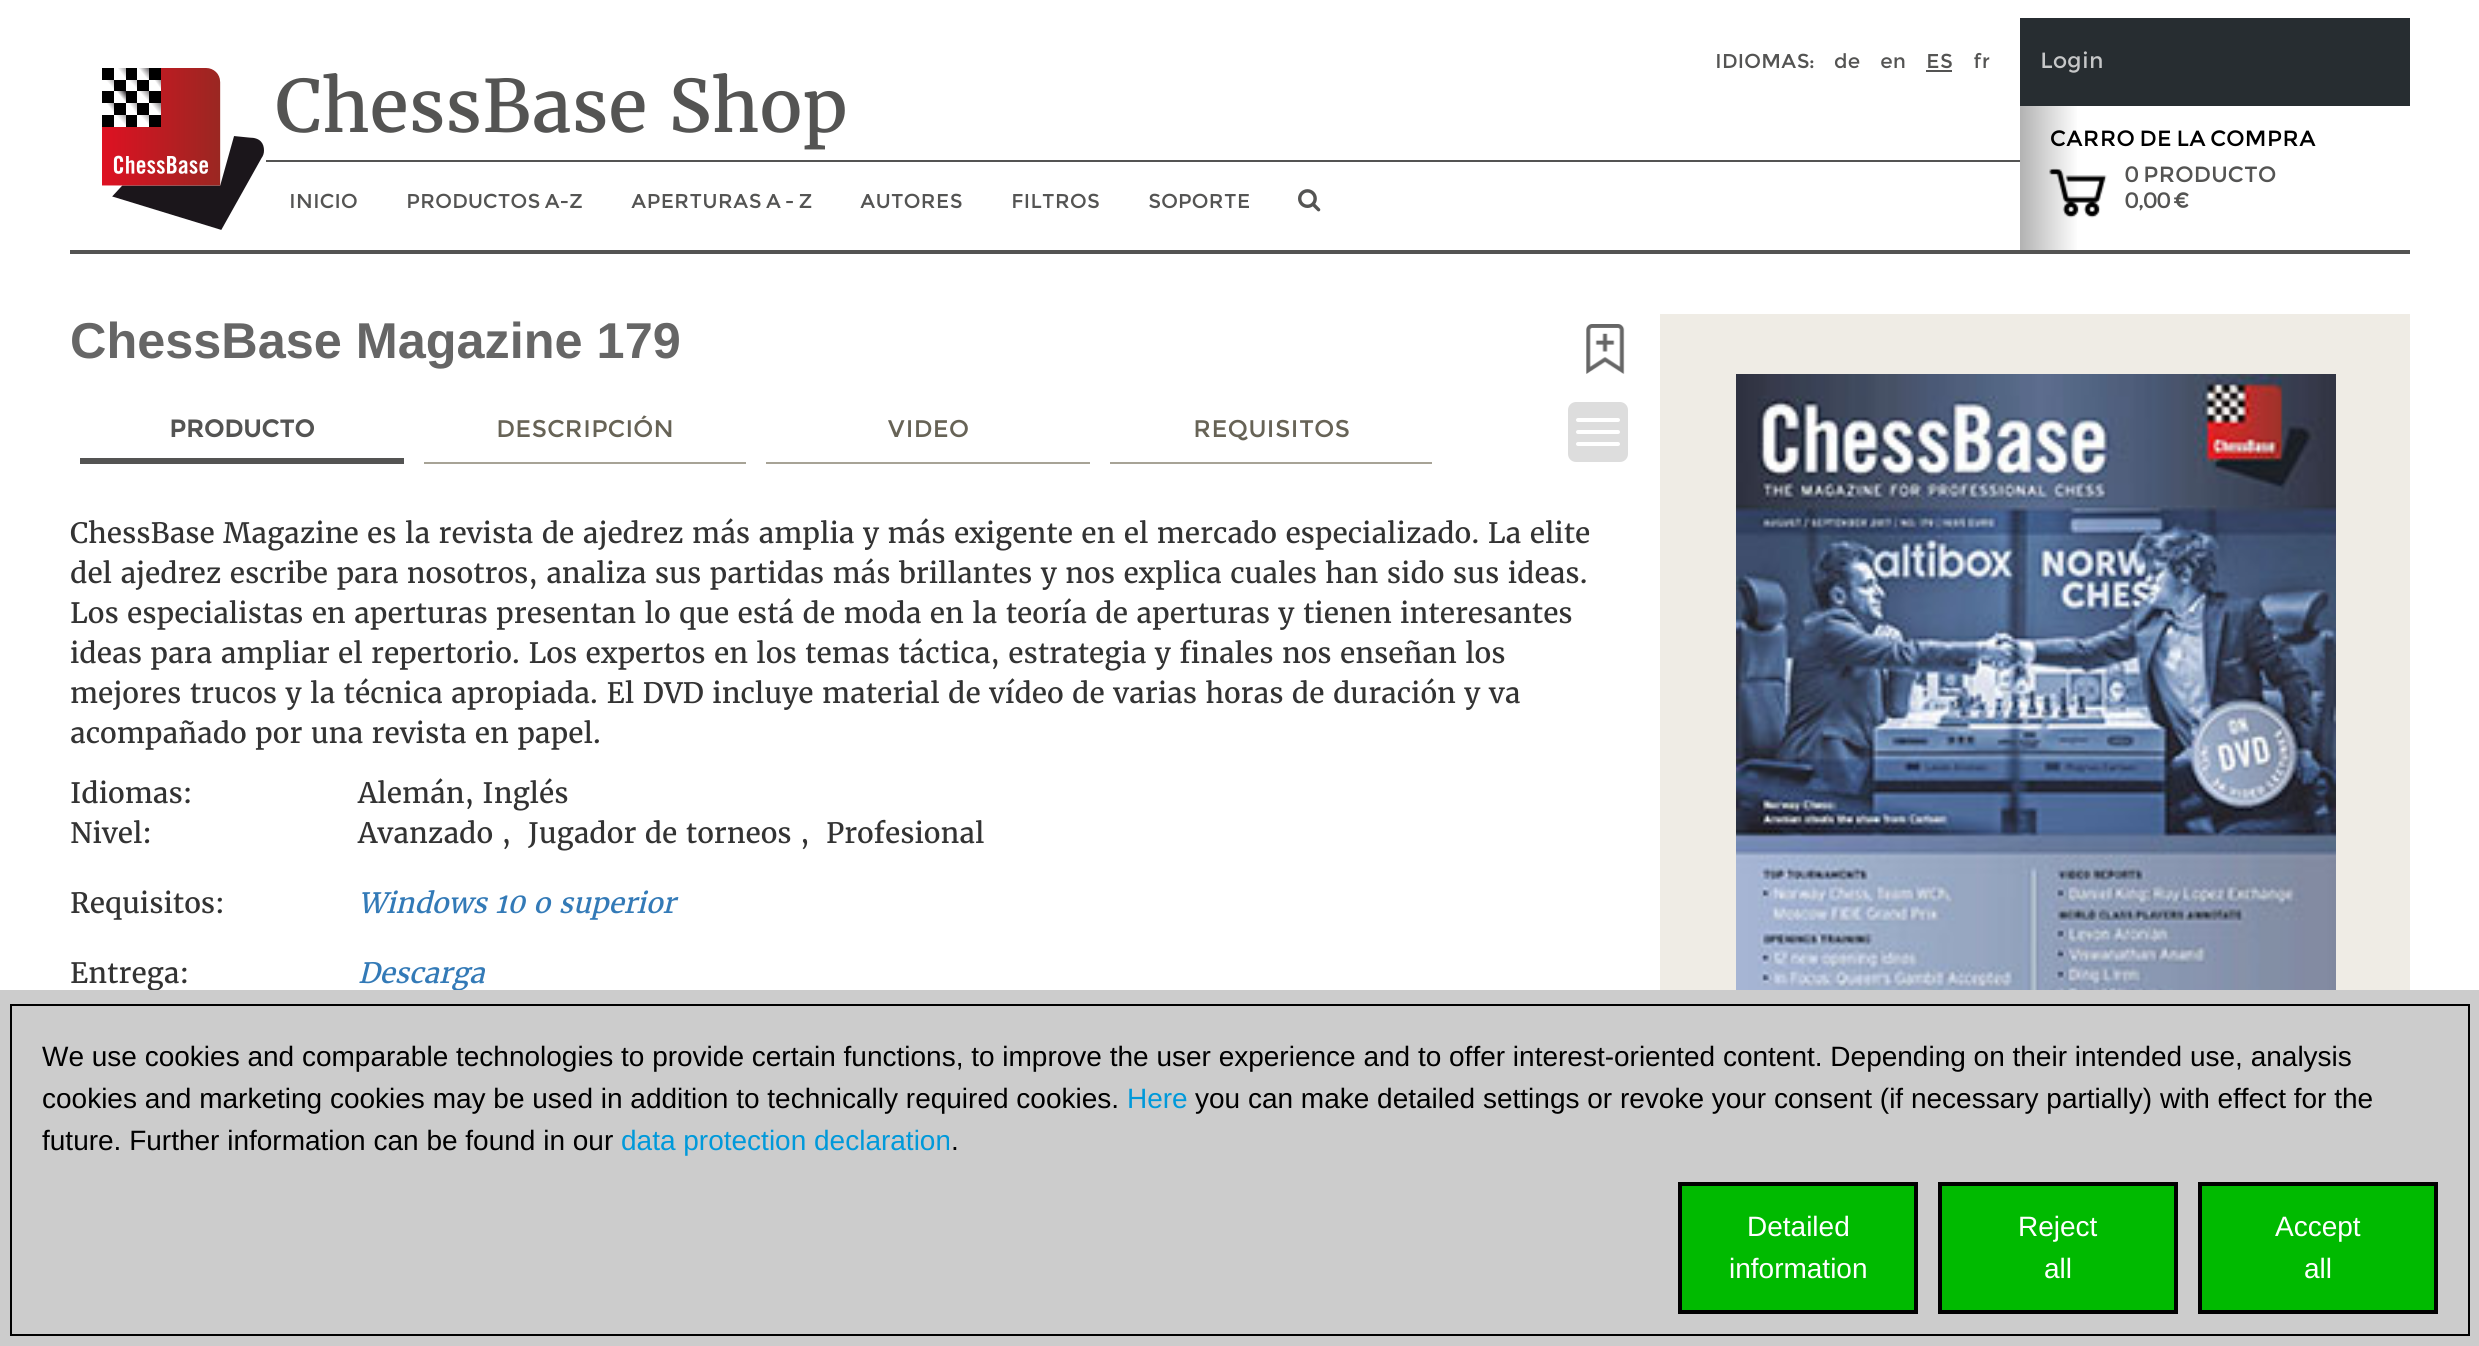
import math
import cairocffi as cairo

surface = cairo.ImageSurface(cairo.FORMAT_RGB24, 2479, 1346)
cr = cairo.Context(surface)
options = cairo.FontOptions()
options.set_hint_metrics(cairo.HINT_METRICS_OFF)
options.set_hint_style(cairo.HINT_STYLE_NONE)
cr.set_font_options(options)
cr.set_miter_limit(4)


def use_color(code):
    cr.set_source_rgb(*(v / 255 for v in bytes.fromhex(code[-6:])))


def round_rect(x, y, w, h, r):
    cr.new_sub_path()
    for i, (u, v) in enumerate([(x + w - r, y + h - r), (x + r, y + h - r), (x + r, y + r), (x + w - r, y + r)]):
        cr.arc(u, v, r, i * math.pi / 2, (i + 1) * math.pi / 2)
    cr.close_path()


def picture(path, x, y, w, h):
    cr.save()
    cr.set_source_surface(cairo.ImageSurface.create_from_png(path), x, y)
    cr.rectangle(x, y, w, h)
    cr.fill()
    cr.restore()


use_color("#ffffff")
cr.paint()
use_color("#545453")
cr.rectangle(70, 250, 2340, 4)
cr.fill()
picture("img1.png", 102, 68, 162, 162)
cr.rectangle(266, 160, 1754, 2)
cr.fill()
cr.select_font_face("Montserrat")
cr.set_font_size(20)
cr.move_to(1715, 68)
cr.show_text("IDIOMAS:")
cr.move_to(1834, 68)
cr.show_text("de")
cr.move_to(1880, 68)
cr.show_text("en")
cr.move_to(1926, 68)
cr.show_text("ES")
cr.rectangle(1926, 70, 26, 2)
cr.fill()
cr.move_to(1973, 68)
cr.show_text("fr")
cr.select_font_face("Merriweather")
cr.set_font_size(72)
cr.move_to(275, 132)
cr.show_text("ChessBase Shop")
cr.select_font_face("Montserrat")
cr.set_font_size(20)
cr.move_to(289, 208)
cr.show_text("INICIO")
cr.move_to(406, 208)
cr.show_text("PRODUCTOS A-Z")
cr.move_to(631, 208)
cr.show_text("APERTURAS A - Z")
cr.move_to(860, 208)
cr.show_text("AUTORES")
cr.move_to(1011, 208)
cr.show_text("FILTROS")
cr.move_to(1148, 208)
cr.show_text("SOPORTE")
picture("img2.png", 1298, 189, 23, 23)
use_color("#272d31")
cr.rectangle(2020, 18, 390, 88)
cr.fill()
cr.set_font_size(22)
use_color("#c6c7c8")
cr.move_to(2040, 68)
cr.show_text("Login")
gradient = cairo.LinearGradient(2020, 178, 2410, 178)
gradient.add_color_stop_rgba(0, 0.698, 0.698, 0.698, 1)
gradient.add_color_stop_rgba(0.15, 1, 1, 1, 1)
gradient.add_color_stop_rgba(0.85, 1, 1, 1, 1)
cr.set_source(gradient)
cr.rectangle(2020, 106, 57, 144)
cr.fill()
use_color("#000000")
cr.move_to(2050, 146)
cr.show_text("CARRO DE LA COMPRA")
picture("img3.png", 2049, 168, 58, 50)
use_color("#545453")
cr.move_to(2125, 182)
cr.show_text("0 PRODUCTO")
cr.move_to(2125, 208)
cr.show_text("0,00 €")
cr.select_font_face("Merriweather")
cr.set_font_size(28)
use_color("#333333")
cr.move_to(70, 983)
cr.show_text("Entrega:")
cr.select_font_face("Merriweather", cairo.FONT_SLANT_ITALIC)
use_color("#337ab7")
cr.move_to(358, 983)
cr.show_text("Descarga")
use_color("#cccccc")
cr.rectangle(0, 990, 2479, 356)
cr.fill()
cr.rectangle(11, 1005, 2458, 330)
use_color("#000000")
cr.stroke()
cr.select_font_face("Liberation Sans")
cr.move_to(42, 1066)
cr.show_text("We use cookies and comparable technologies to provide certain functions, to improve the user experience and to offer interest-oriented content. Depending on their intended use, analysis")
cr.move_to(42, 1108)
cr.show_text("cookies and marketing cookies may be used in addition to technically required cookies.")
use_color("#0099da")
cr.move_to(1127, 1108)
cr.show_text("Here")
use_color("#000000")
cr.move_to(1195, 1108)
cr.show_text("you can make detailed settings or revoke your consent (if necessary partially) with effect for the")
cr.move_to(42, 1150)
cr.show_text("future. Further information can be found in our")
use_color("#0099da")
cr.move_to(621, 1150)
cr.show_text("data protection declaration")
use_color("#000000")
cr.move_to(951, 1150)
cr.show_text(".")
use_color("#00ba00")
cr.rectangle(1680, 1184, 236, 128)
cr.fill_preserve()
use_color("#000000")
cr.set_line_width(4)
cr.stroke()
use_color("#ffffff")
cr.move_to(1747, 1236)
cr.show_text("Detailed")
cr.move_to(1729, 1278)
cr.show_text("information")
use_color("#00ba00")
cr.rectangle(1940, 1184, 236, 128)
cr.fill_preserve()
use_color("#000000")
cr.stroke()
use_color("#ffffff")
cr.move_to(2018, 1236)
cr.show_text("Reject")
cr.move_to(2044, 1278)
cr.show_text("all")
use_color("#00ba00")
cr.rectangle(2200, 1184, 236, 128)
cr.fill_preserve()
use_color("#000000")
cr.stroke()
use_color("#ffffff")
cr.move_to(2275, 1236)
cr.show_text("Accept")
cr.move_to(2304, 1278)
cr.show_text("all")
cr.select_font_face("Liberation Sans", cairo.FONT_SLANT_NORMAL, cairo.FONT_WEIGHT_BOLD)
cr.set_font_size(50.4)
use_color("#666666")
cr.move_to(70, 358)
cr.show_text("ChessBase Magazine 179")
picture("img4.png", 1586, 324, 39, 50)
use_color("#545453")
cr.rectangle(80, 458, 324, 6)
cr.fill()
cr.select_font_face("Montserrat", cairo.FONT_SLANT_NORMAL, cairo.FONT_WEIGHT_BOLD)
cr.set_font_size(24)
cr.move_to(169, 437)
cr.show_text("PRODUCTO")
use_color("#a7a396")
cr.rectangle(424, 462, 322, 2)
cr.fill()
cr.select_font_face("Montserrat")
use_color("#676356")
cr.move_to(496, 437)
cr.show_text("DESCRIPCIÓN")
use_color("#a7a396")
cr.rectangle(766, 462, 324, 2)
cr.fill()
use_color("#676356")
cr.move_to(887, 437)
cr.show_text("VIDEO")
use_color("#a7a396")
cr.rectangle(1110, 462, 322, 2)
cr.fill()
use_color("#676356")
cr.move_to(1193, 437)
cr.show_text("REQUISITOS")
use_color("#dddddd")
round_rect(1567, 401, 62, 62, 9)
cr.fill_preserve()
use_color("#ffffff")
cr.set_line_width(2)
cr.stroke()
round_rect(1576, 418, 44, 4, 2)
cr.fill()
round_rect(1576, 430, 44, 4, 2)
cr.fill()
round_rect(1576, 442, 44, 4, 2)
cr.fill()
cr.select_font_face("Merriweather")
cr.set_font_size(28)
use_color("#333333")
cr.move_to(70, 543)
cr.show_text("ChessBase Magazine es la revista de ajedrez más amplia y más exigente en el mercado especializado. La elite")
cr.move_to(70, 583)
cr.show_text("del ajedrez escribe para nosotros, analiza sus partidas más brillantes y nos explica cuales han sido sus ideas.")
cr.move_to(70, 623)
cr.show_text("Los especialistas en aperturas presentan lo que está de moda en la teoría de aperturas y tienen interesantes")
cr.move_to(70, 663)
cr.show_text("ideas para ampliar el repertorio. Los expertos en los temas táctica, estrategia y finales nos enseñan los")
cr.move_to(70, 703)
cr.show_text("mejores trucos y la técnica apropiada. El DVD incluye material de vídeo de varias horas de duración y va")
cr.move_to(70, 743)
cr.show_text("acompañado por una revista en papel.")
cr.move_to(70, 803)
cr.show_text("Idiomas:")
cr.move_to(358, 803)
cr.show_text("Alemán, Inglés")
cr.move_to(70, 843)
cr.show_text("Nivel:")
cr.move_to(358, 843)
cr.show_text("Avanzado ,")
cr.move_to(528, 843)
cr.show_text("Jugador de torneos ,")
cr.move_to(826, 843)
cr.show_text("Profesional")
cr.move_to(70, 913)
cr.show_text("Requisitos:")
cr.select_font_face("Merriweather", cairo.FONT_SLANT_ITALIC)
use_color("#337ab7")
cr.move_to(358, 913)
cr.show_text("Windows 10 o superior")
use_color("#efece5")
cr.rectangle(1660, 314, 750, 676)
cr.fill()
picture("img5.png", 1736, 374, 600, 616)
surface.write_to_png("result.png")
